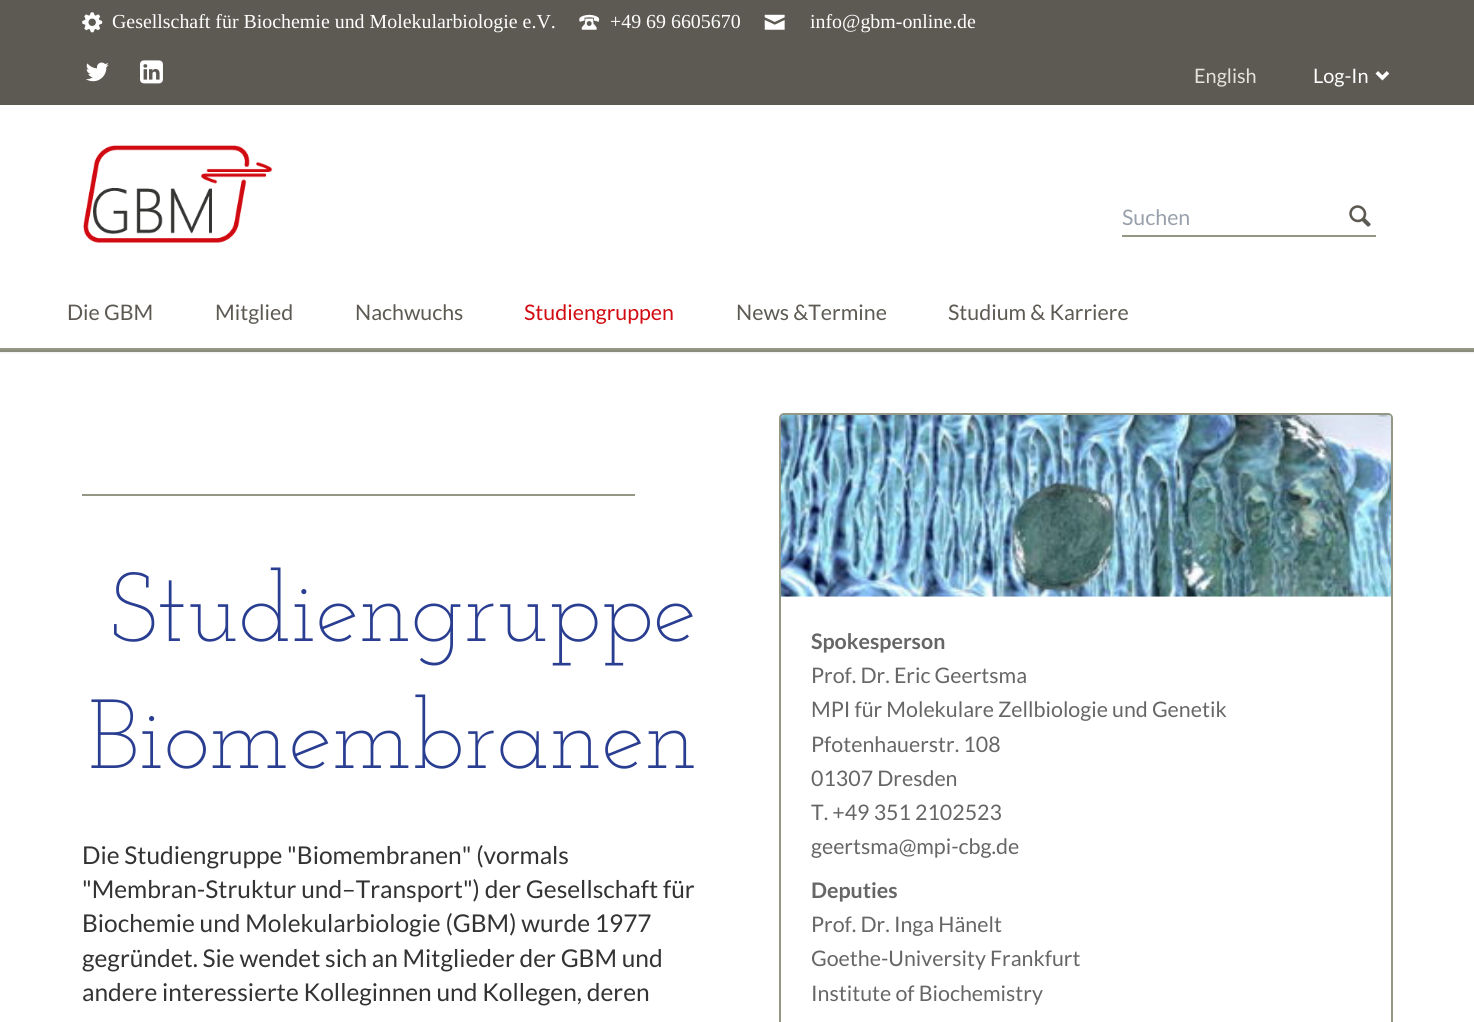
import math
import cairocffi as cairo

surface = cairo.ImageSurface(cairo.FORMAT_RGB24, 1474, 1022)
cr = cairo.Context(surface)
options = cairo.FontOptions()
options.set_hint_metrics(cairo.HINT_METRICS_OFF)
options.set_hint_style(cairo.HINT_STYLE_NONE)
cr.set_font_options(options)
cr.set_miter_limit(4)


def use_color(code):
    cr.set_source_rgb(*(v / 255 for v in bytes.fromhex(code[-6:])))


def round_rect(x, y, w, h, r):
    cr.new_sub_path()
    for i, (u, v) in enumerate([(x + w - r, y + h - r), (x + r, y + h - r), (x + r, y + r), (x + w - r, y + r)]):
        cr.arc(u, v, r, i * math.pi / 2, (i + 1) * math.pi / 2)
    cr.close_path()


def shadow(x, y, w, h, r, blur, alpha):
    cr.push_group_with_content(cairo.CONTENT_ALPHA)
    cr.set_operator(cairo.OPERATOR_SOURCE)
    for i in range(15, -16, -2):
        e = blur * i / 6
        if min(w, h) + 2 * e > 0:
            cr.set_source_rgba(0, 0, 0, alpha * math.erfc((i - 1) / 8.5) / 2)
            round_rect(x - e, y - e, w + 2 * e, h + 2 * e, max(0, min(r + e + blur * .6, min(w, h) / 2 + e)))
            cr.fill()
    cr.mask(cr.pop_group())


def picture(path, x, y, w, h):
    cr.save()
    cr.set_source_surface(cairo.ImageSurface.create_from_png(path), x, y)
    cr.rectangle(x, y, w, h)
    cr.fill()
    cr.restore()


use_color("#ffffff")
cr.paint()
use_color("#5d5a53")
cr.rectangle(0, 0, 1474, 105)
cr.fill()
picture("img1.png", 82, 12, 21, 21)
cr.select_font_face("Liberation Serif")
cr.set_font_size(19.9)
use_color("#ffffff")
cr.move_to(112, 28)
cr.show_text("Gesellschaft für Biochemie und Molekularbiologie e.V.")
picture("img2.png", 579, 14, 21, 16)
cr.move_to(610, 28)
cr.show_text("+49 69 6605670")
picture("img3.png", 764, 14, 21, 16)
cr.move_to(810, 28)
cr.show_text("info@gbm-online.de")
picture("img4.png", 86, 62, 23, 20)
picture("img5.png", 140, 60, 23, 24)
cr.select_font_face("Lato")
use_color("#e4e3dc")
cr.move_to(1194, 83)
cr.show_text("English")
use_color("#ffffff")
cr.move_to(1313, 83)
cr.show_text("Log-In")
picture("img6.png", 1375, 71, 15, 10)
use_color("#959785")
cr.rectangle(0, 350, 1474, 2)
cr.fill()
cr.save()
cr.rectangle(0, 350, 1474, 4)
cr.clip()
use_color("#000000")
shadow(0, 109, 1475, 243, 0, 2, 0.1)
cr.restore()
cr.rectangle(0, 348, 1474, 2)
cr.fill()
picture("img7.png", 83, 145, 190, 98)
cr.rectangle(1122, 235, 254, 2)
cr.fill()
cr.set_font_size(21.4)
use_color("#98a0ab")
cr.move_to(1122, 225)
cr.show_text("Suchen")
picture("img8.png", 1349, 205, 22, 22)
use_color("#5d5a53")
cr.move_to(67, 320)
cr.show_text("Die GBM")
cr.move_to(215, 320)
cr.show_text("Mitglied")
cr.move_to(355, 320)
cr.show_text("Nachwuchs")
use_color("#d20a11")
cr.move_to(524, 320)
cr.show_text("Studiengruppen")
use_color("#5d5a53")
cr.move_to(736, 320)
cr.show_text("News &Termine")
cr.move_to(948, 320)
cr.show_text("Studium & Karriere")
use_color("#959785")
cr.rectangle(82, 494, 553, 2)
cr.fill()
cr.select_font_face("Josefin Slab Thin")
cr.set_font_size(98)
use_color("#293d91")
cr.move_to(110, 641)
cr.show_text("Studiengruppe")
cr.move_to(88, 768)
cr.show_text("Biomembranen")
cr.select_font_face("Lato")
cr.set_font_size(24.5)
use_color("#333333")
cr.move_to(82, 864)
cr.show_text("Die Studiengruppe \"Biomembranen\" (vormals")
cr.move_to(82, 898)
cr.show_text("\"Membran-Struktur und–Transport\") der Gesellschaft für")
cr.move_to(82, 932)
cr.show_text("Biochemie und Molekularbiologie (GBM) wurde 1977")
cr.move_to(82, 967)
cr.show_text("gegründet. Sie wendet sich an Mitglieder der GBM und")
cr.move_to(82, 1001)
cr.show_text("andere interessierte Kolleginnen und Kollegen, deren")
round_rect(780, 414, 612, 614, 4)
use_color("#959785")
cr.stroke()
picture("img9.png", 780, 415, 611, 182)
cr.select_font_face("Lato", cairo.FONT_SLANT_NORMAL, cairo.FONT_WEIGHT_BOLD)
cr.set_font_size(21.4)
use_color("#666666")
cr.move_to(811, 649)
cr.show_text("Spokesperson")
cr.select_font_face("Lato")
cr.move_to(811, 683)
cr.show_text("Prof. Dr. Eric Geertsma")
cr.move_to(811, 717)
cr.show_text("MPI für Molekulare Zellbiologie und Genetik")
cr.move_to(811, 752)
cr.show_text("Pfotenhauerstr. 108")
cr.move_to(811, 786)
cr.show_text("01307 Dresden")
cr.move_to(811, 820)
cr.show_text("T. +49 351 2102523")
cr.move_to(811, 854)
cr.show_text("geertsma@mpi-cbg.de")
cr.select_font_face("Lato", cairo.FONT_SLANT_NORMAL, cairo.FONT_WEIGHT_BOLD)
cr.move_to(811, 898)
cr.show_text("Deputies")
cr.select_font_face("Lato")
cr.move_to(811, 932)
cr.show_text("Prof. Dr. Inga Hänelt")
cr.move_to(811, 966)
cr.show_text("Goethe-University Frankfurt")
cr.move_to(811, 1001)
cr.show_text("Institute of Biochemistry")
surface.write_to_png("result.png")
